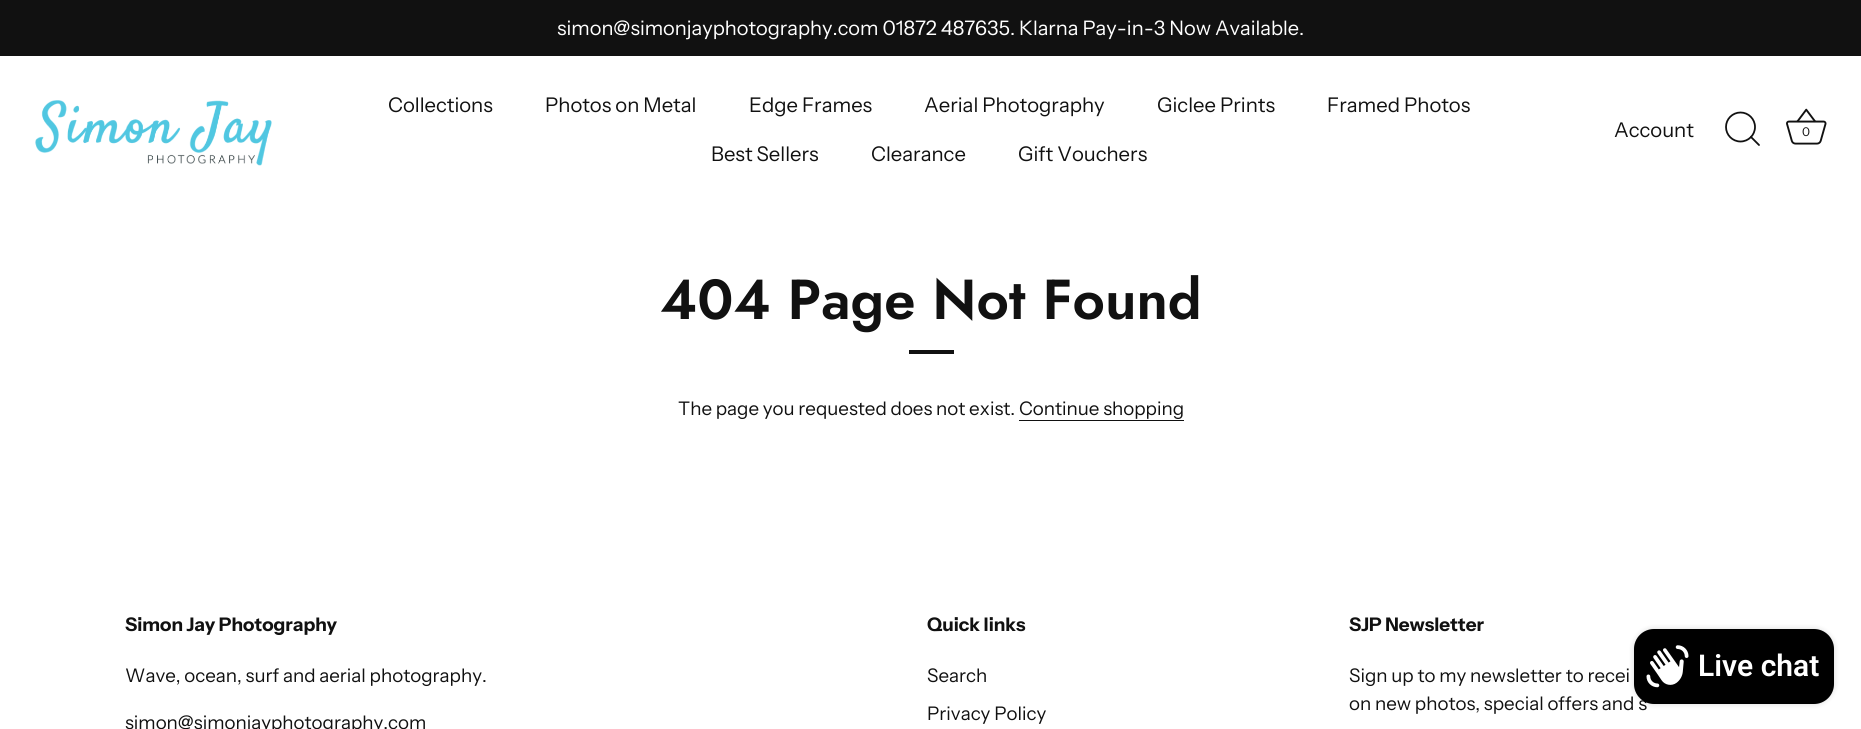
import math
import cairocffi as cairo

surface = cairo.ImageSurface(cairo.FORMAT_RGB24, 1861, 729)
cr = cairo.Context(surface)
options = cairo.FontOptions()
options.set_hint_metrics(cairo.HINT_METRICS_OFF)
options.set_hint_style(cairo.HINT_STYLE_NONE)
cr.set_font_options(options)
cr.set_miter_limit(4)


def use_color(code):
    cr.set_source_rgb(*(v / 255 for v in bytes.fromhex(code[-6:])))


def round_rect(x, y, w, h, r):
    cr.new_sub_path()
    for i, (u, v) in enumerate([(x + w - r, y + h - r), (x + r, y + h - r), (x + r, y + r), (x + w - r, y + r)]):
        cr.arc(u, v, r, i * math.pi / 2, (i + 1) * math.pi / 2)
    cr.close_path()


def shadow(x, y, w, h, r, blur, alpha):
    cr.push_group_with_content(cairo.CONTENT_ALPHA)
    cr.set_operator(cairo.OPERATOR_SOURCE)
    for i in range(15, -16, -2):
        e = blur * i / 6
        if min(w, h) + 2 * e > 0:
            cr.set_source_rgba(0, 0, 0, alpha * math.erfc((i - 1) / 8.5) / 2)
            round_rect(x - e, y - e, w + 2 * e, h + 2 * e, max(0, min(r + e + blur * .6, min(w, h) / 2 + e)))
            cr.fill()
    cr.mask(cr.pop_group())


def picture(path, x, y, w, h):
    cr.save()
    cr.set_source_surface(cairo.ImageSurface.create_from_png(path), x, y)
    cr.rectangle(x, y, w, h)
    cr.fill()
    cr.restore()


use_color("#ffffff")
cr.paint()
use_color("#111111")
cr.rectangle(0, 0, 1861, 56)
cr.fill()
cr.select_font_face("Instrument Sans")
cr.set_font_size(20)
use_color("#ffffff")
cr.move_to(557, 35)
cr.show_text("simon@simonjayphotography.com 01872 487635. Klarna Pay-in-3 Now Available.")
picture("img1.png", 35, 100, 237, 66)
cr.set_font_size(20.25)
use_color("#111111")
cr.move_to(388, 112)
cr.show_text("Collections")
cr.move_to(545, 112)
cr.show_text("Photos on Metal")
cr.move_to(749, 112)
cr.show_text("Edge Frames")
cr.move_to(924, 112)
cr.show_text("Aerial Photography")
cr.move_to(1157, 112)
cr.show_text("Giclee Prints")
cr.move_to(1327, 112)
cr.show_text("Framed Photos")
cr.move_to(711, 161)
cr.show_text("Best Sellers")
cr.move_to(871, 161)
cr.show_text("Clearance")
cr.move_to(1018, 161)
cr.show_text("Gift Vouchers")
cr.move_to(1614, 137)
cr.show_text("Account")
cr.new_path()
cr.arc(1740.5, 127, 14.5, 0, 2 * math.pi)
cr.set_line_width(1.8)
cr.stroke()
cr.new_path()
cr.move_to(1759, 145)
cr.line_to(1751, 137)
cr.set_line_cap(cairo.LINE_CAP_ROUND)
cr.set_line_join(cairo.LINE_JOIN_ROUND)
cr.stroke()
picture("img2.png", 1786, 108, 41, 37)
cr.set_font_size(12)
cr.move_to(1802, 136)
cr.show_text("0")
cr.select_font_face("Jost SemiBold")
cr.set_font_size(56.25)
cr.move_to(660, 319)
cr.show_text("404 Page Not Found")
cr.rectangle(909, 350, 45, 4)
cr.fill()
cr.select_font_face("Instrument Sans")
cr.set_font_size(18.75)
cr.move_to(678, 415)
cr.show_text("The page you requested does not exist. Continue shopping")
cr.rectangle(1019, 420, 165, 1)
cr.fill()
cr.select_font_face("Instrument Sans", cairo.FONT_SLANT_NORMAL, cairo.FONT_WEIGHT_BOLD)
cr.move_to(125, 631)
cr.show_text("Simon Jay Photography")
cr.select_font_face("Instrument Sans")
cr.move_to(125, 682)
cr.show_text("Wave, ocean, surf and aerial photography.")
cr.move_to(125, 729)
cr.show_text("simon@simonjayphotography.com")
cr.select_font_face("Instrument Sans", cairo.FONT_SLANT_NORMAL, cairo.FONT_WEIGHT_BOLD)
cr.move_to(927, 631)
cr.show_text("Quick links")
cr.select_font_face("Instrument Sans")
cr.move_to(927, 682)
cr.show_text("Search")
cr.move_to(927, 720)
cr.show_text("Privacy Policy")
cr.select_font_face("Instrument Sans", cairo.FONT_SLANT_NORMAL, cairo.FONT_WEIGHT_BOLD)
cr.move_to(1349, 631)
cr.show_text("SJP Newsletter")
cr.select_font_face("Instrument Sans")
cr.move_to(1349, 682)
cr.show_text("Sign up to my newsletter to recei")
cr.move_to(1349, 710)
cr.show_text("on new photos, special offers and s")
use_color("#000000")
shadow(1634, 629, 200, 75, 20, 3, 0.15)
use_color("#000000")
round_rect(1634, 629, 200, 75, 20)
cr.fill()
picture("img3.png", 1646, 645, 43, 43)
cr.select_font_face("Roboto SemiBold")
cr.set_font_size(30)
use_color("#ffffff")
cr.move_to(1698, 676)
cr.show_text("Live chat")
surface.write_to_png("result.png")
